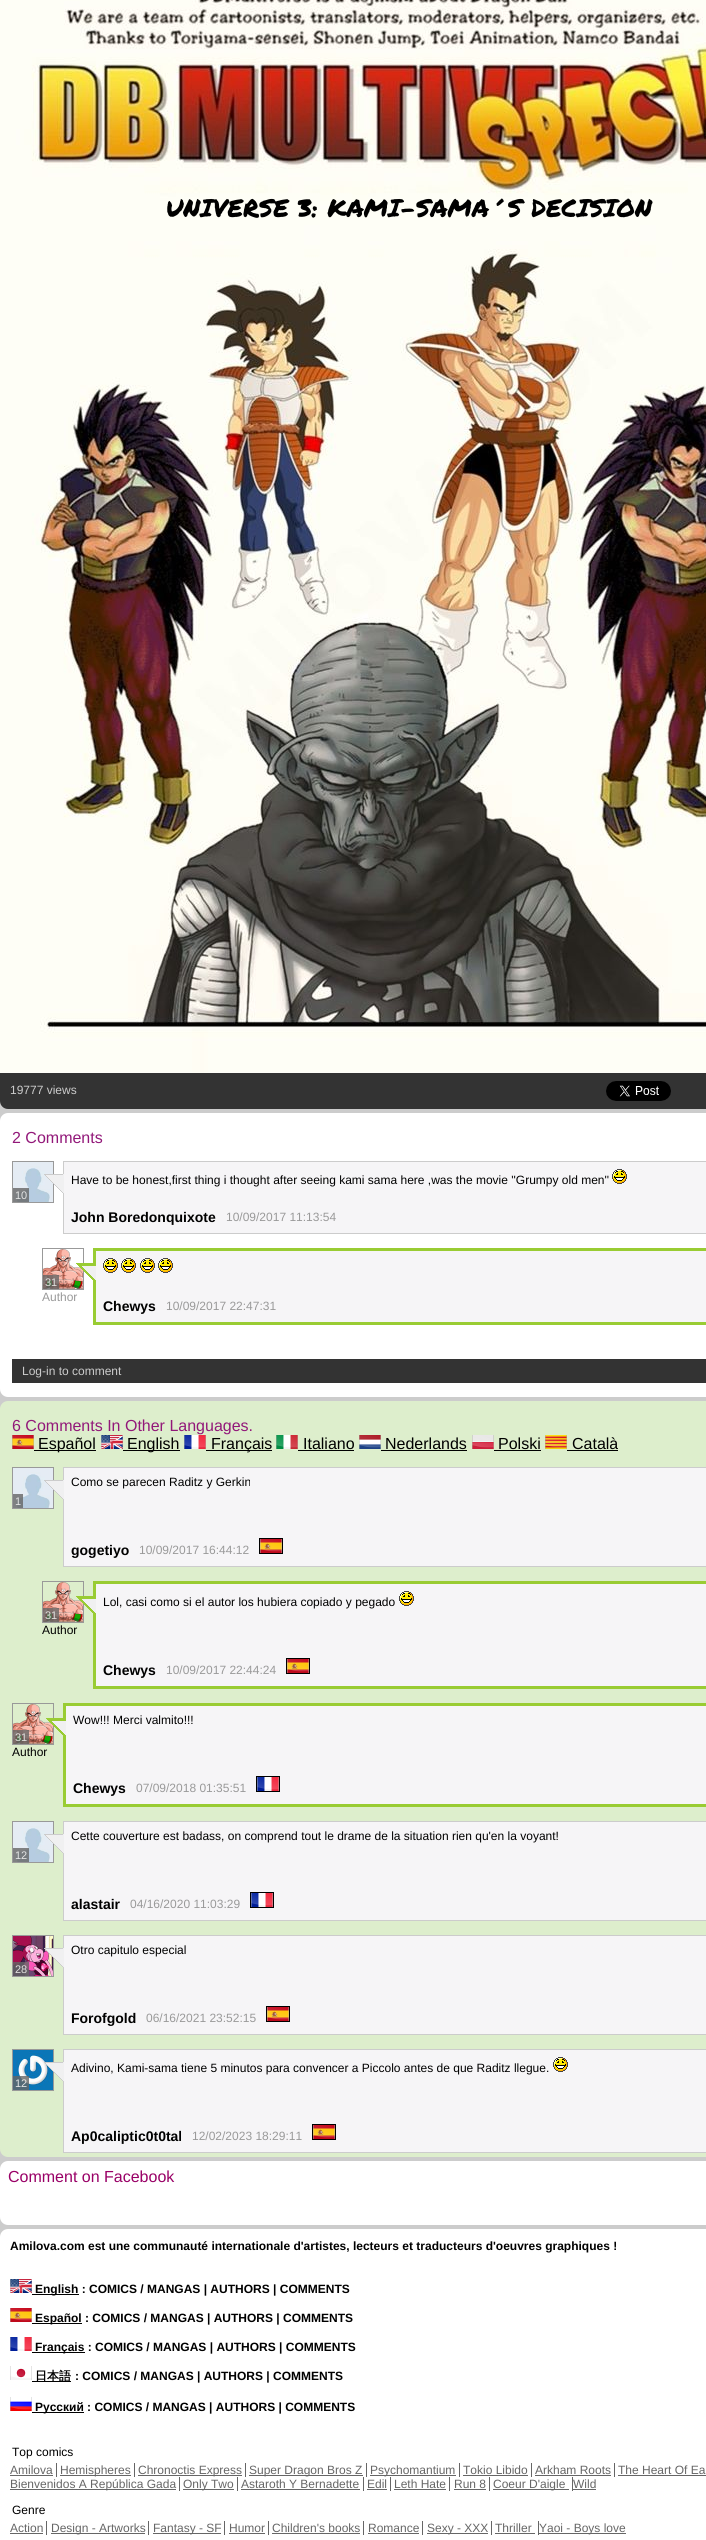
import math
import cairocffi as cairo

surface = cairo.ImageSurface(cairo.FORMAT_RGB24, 706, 2540)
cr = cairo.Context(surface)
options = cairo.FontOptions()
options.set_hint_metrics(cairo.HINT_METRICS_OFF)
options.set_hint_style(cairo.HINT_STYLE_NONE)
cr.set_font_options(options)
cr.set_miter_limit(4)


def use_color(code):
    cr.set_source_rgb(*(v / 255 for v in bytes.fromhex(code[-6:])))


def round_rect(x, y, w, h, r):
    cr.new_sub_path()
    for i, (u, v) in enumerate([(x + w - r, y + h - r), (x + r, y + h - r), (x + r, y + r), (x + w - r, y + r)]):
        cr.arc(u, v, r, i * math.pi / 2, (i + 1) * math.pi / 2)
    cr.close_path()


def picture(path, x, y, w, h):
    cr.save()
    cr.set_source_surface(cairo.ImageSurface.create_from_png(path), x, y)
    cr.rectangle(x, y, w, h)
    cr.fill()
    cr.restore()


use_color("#cccccc")
cr.paint()
use_color("#333333")
round_rect(0, -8, 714, 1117, 8)
cr.fill()
picture("img1.png", 0, 0, 706, 1073)
cr.select_font_face("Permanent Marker")
cr.set_font_size(24.8)
use_color("#000000")
cr.move_to(166, 217)
cr.show_text("UNIVERSE 3: KAMI-SAMA´S DECISION")
cr.select_font_face("Liberation Sans")
cr.set_font_size(12)
use_color("#cccccc")
cr.move_to(10, 1094)
cr.show_text("19777 views")
picture("img2.png", 606, 1081, 65, 20)
use_color("#ffffff")
round_rect(0, 1113, 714, 284, 8)
cr.fill()
cr.set_font_size(16)
use_color("#921879")
cr.move_to(12, 1143)
cr.show_text("2 Comments")
cr.rectangle(12.5, 1161.5, 41, 41)
use_color("#999999")
cr.set_line_width(1)
cr.stroke()
picture("img3.png", 13, 1162, 40, 40)
cr.set_source_rgba(0.4, 0.4, 0.4, 0.8)
cr.rectangle(13, 1188, 16, 14)
cr.fill()
cr.set_font_size(11)
use_color("#e4e5e5")
cr.move_to(15, 1199)
cr.show_text("10")
use_color("#f6f5f7")
cr.rectangle(63.5, 1161.5, 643, 72)
cr.fill_preserve()
use_color("#cccccc")
cr.stroke()
picture("img4.png", 44, 1174, 20, 19)
cr.set_font_size(12)
use_color("#000000")
cr.move_to(71, 1184)
cr.show_text("Have to be honest,first thing i thought after seeing kami sama here ,was the movie ''Grumpy old men''")
picture("img5.png", 612, 1169, 15, 15)
cr.select_font_face("Liberation Sans", cairo.FONT_SLANT_NORMAL, cairo.FONT_WEIGHT_BOLD)
cr.set_font_size(14)
cr.move_to(71, 1222)
cr.show_text("John Boredonquixote")
cr.select_font_face("Liberation Sans")
cr.set_font_size(12)
use_color("#999999")
cr.move_to(226, 1221)
cr.show_text("10/09/2017 11:13:54")
cr.rectangle(42.5, 1248.5, 41, 41)
cr.stroke()
picture("img6.png", 43, 1249, 40, 40)
cr.set_source_rgba(0.4, 0.4, 0.4, 0.8)
cr.rectangle(43, 1275, 16, 14)
cr.fill()
cr.set_font_size(11)
use_color("#e2e1df")
cr.move_to(45, 1286)
cr.show_text("31")
cr.set_font_size(12)
use_color("#999999")
cr.move_to(42, 1301)
cr.show_text("Author")
use_color("#f6f5f7")
cr.rectangle(94.5, 1249.5, 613, 74)
cr.fill_preserve()
use_color("#99cc33")
cr.set_line_width(3)
cr.stroke()
picture("img7.png", 76, 1263, 20, 17)
picture("img5.png", 103, 1258, 15, 15)
picture("img5.png", 121, 1258, 15, 15)
picture("img5.png", 140, 1258, 15, 15)
picture("img5.png", 158, 1258, 15, 15)
cr.select_font_face("Liberation Sans", cairo.FONT_SLANT_NORMAL, cairo.FONT_WEIGHT_BOLD)
cr.set_font_size(14)
use_color("#000000")
cr.move_to(103, 1311)
cr.show_text("Chewys")
cr.select_font_face("Liberation Sans")
cr.set_font_size(12)
use_color("#999999")
cr.move_to(166, 1310)
cr.show_text("10/09/2017 22:47:31")
use_color("#333333")
cr.rectangle(12, 1359, 694, 24)
cr.fill()
use_color("#cccccc")
cr.move_to(22, 1375)
cr.show_text("Log-in to comment")
use_color("#ddeecc")
round_rect(0, 1401, 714, 756, 8)
cr.fill()
cr.set_font_size(16)
use_color("#921879")
cr.move_to(12, 1431)
cr.show_text("6 Comments In Other Languages.")
picture("img8.png", 12, 1435, 22, 14)
use_color("#000000")
cr.rectangle(34, 1450, 62, 1)
cr.fill()
cr.move_to(38, 1449)
cr.show_text("Español")
picture("img9.png", 101, 1435, 22, 14)
cr.rectangle(123, 1450, 57, 1)
cr.fill()
cr.move_to(127, 1449)
cr.show_text("English")
picture("img10.png", 184, 1435, 22, 14)
cr.rectangle(206, 1450, 66, 1)
cr.fill()
cr.move_to(211, 1449)
cr.show_text("Français")
picture("img11.png", 276, 1435, 22, 14)
cr.move_to(303, 1449)
cr.show_text("Italiano")
cr.rectangle(298, 1450, 56, 1)
cr.fill()
picture("img12.png", 359, 1435, 22, 14)
cr.move_to(385, 1449)
cr.show_text("Nederlands")
cr.rectangle(381, 1450, 86, 1)
cr.fill()
picture("img13.png", 472, 1435, 22, 14)
cr.move_to(498, 1449)
cr.show_text("Polski")
cr.rectangle(494, 1450, 47, 1)
cr.fill()
picture("img14.png", 545, 1435, 22, 14)
cr.move_to(572, 1449)
cr.show_text("Català")
cr.rectangle(567, 1450, 51, 1)
cr.fill()
cr.rectangle(12.5, 1467.5, 41, 41)
use_color("#999999")
cr.set_line_width(1)
cr.stroke()
picture("img15.png", 13, 1468, 40, 40)
cr.set_source_rgba(0.4, 0.4, 0.4, 0.8)
cr.rectangle(13, 1494, 10, 14)
cr.fill()
cr.set_font_size(11)
use_color("#e4e5e5")
cr.move_to(15, 1505)
cr.show_text("1")
use_color("#f6f5f7")
cr.rectangle(63.5, 1467.5, 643, 99)
cr.fill_preserve()
use_color("#cccccc")
cr.stroke()
picture("img16.png", 44, 1480, 20, 19)
cr.set_font_size(12)
use_color("#000000")
cr.move_to(71, 1486)
cr.show_text("Como se parecen Raditz y Gerkin")
cr.rectangle(259.5, 1538.5, 23, 15)
cr.stroke()
cr.select_font_face("Liberation Sans", cairo.FONT_SLANT_NORMAL, cairo.FONT_WEIGHT_BOLD)
cr.set_font_size(14)
cr.move_to(71, 1555)
cr.show_text("gogetiyo")
cr.select_font_face("Liberation Sans")
cr.set_font_size(12)
use_color("#999999")
cr.move_to(139, 1554)
cr.show_text("10/09/2017 16:44:12")
picture("img17.png", 260, 1539, 22, 14)
cr.rectangle(42.5, 1581.5, 41, 41)
cr.stroke()
picture("img18.png", 43, 1582, 40, 40)
cr.set_source_rgba(0.4, 0.4, 0.4, 0.8)
cr.rectangle(43, 1608, 16, 14)
cr.fill()
cr.set_font_size(11)
use_color("#e2e1df")
cr.move_to(45, 1619)
cr.show_text("31")
cr.set_font_size(12)
use_color("#000000")
cr.move_to(42, 1634)
cr.show_text("Author")
use_color("#f6f5f7")
cr.rectangle(94.5, 1582.5, 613, 105)
cr.fill_preserve()
use_color("#99cc33")
cr.set_line_width(3)
cr.stroke()
picture("img19.png", 76, 1596, 20, 17)
use_color("#000000")
cr.move_to(103, 1606)
cr.show_text("Lol, casi como si el autor los hubiera copiado y pegado")
picture("img5.png", 399, 1591, 15, 15)
cr.rectangle(286.5, 1658.5, 23, 15)
cr.set_line_width(1)
cr.stroke()
cr.select_font_face("Liberation Sans", cairo.FONT_SLANT_NORMAL, cairo.FONT_WEIGHT_BOLD)
cr.set_font_size(14)
cr.move_to(103, 1675)
cr.show_text("Chewys")
cr.select_font_face("Liberation Sans")
cr.set_font_size(12)
use_color("#999999")
cr.move_to(166, 1674)
cr.show_text("10/09/2017 22:44:24")
picture("img17.png", 287, 1659, 22, 14)
cr.rectangle(12.5, 1703.5, 41, 41)
cr.stroke()
picture("img18.png", 13, 1704, 40, 40)
cr.set_source_rgba(0.4, 0.4, 0.4, 0.8)
cr.rectangle(13, 1730, 16, 14)
cr.fill()
cr.set_font_size(11)
use_color("#e2e1df")
cr.move_to(15, 1741)
cr.show_text("31")
cr.set_font_size(12)
use_color("#000000")
cr.move_to(12, 1756)
cr.show_text("Author")
use_color("#f6f5f7")
cr.rectangle(64.5, 1704.5, 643, 101)
cr.fill_preserve()
use_color("#99cc33")
cr.set_line_width(3)
cr.stroke()
picture("img19.png", 46, 1718, 20, 17)
use_color("#000000")
cr.move_to(73, 1724)
cr.show_text("Wow!!! Merci valmito!!!")
cr.rectangle(256.5, 1776.5, 23, 15)
cr.set_line_width(1)
cr.stroke()
cr.select_font_face("Liberation Sans", cairo.FONT_SLANT_NORMAL, cairo.FONT_WEIGHT_BOLD)
cr.set_font_size(14)
cr.move_to(73, 1793)
cr.show_text("Chewys")
cr.select_font_face("Liberation Sans")
cr.set_font_size(12)
use_color("#999999")
cr.move_to(136, 1792)
cr.show_text("07/09/2018 01:35:51")
picture("img20.png", 257, 1777, 22, 14)
cr.rectangle(12.5, 1821.5, 41, 41)
cr.stroke()
picture("img21.png", 13, 1822, 40, 40)
cr.set_source_rgba(0.4, 0.4, 0.4, 0.8)
cr.rectangle(13, 1848, 16, 14)
cr.fill()
cr.set_font_size(11)
use_color("#e4e5e5")
cr.move_to(15, 1859)
cr.show_text("12")
use_color("#f6f5f7")
cr.rectangle(63.5, 1821.5, 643, 99)
cr.fill_preserve()
use_color("#cccccc")
cr.stroke()
picture("img22.png", 44, 1834, 20, 19)
cr.set_font_size(12)
use_color("#000000")
cr.move_to(71, 1840)
cr.show_text("Cette couverture est badass, on comprend tout le drame de la situation rien qu'en la voyant!")
cr.rectangle(250.5, 1892.5, 23, 15)
cr.stroke()
cr.select_font_face("Liberation Sans", cairo.FONT_SLANT_NORMAL, cairo.FONT_WEIGHT_BOLD)
cr.set_font_size(14)
cr.move_to(71, 1909)
cr.show_text("alastair")
cr.select_font_face("Liberation Sans")
cr.set_font_size(12)
use_color("#999999")
cr.move_to(130, 1908)
cr.show_text("04/16/2020 11:03:29")
picture("img20.png", 251, 1893, 22, 14)
cr.rectangle(12.5, 1935.5, 41, 41)
cr.stroke()
picture("img23.png", 13, 1936, 40, 40)
cr.set_source_rgba(0.4, 0.4, 0.4, 0.8)
cr.rectangle(13, 1962, 16, 14)
cr.fill()
cr.set_font_size(11)
use_color("#e2e1df")
cr.move_to(15, 1973)
cr.show_text("28")
use_color("#f6f5f7")
cr.rectangle(63.5, 1935.5, 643, 99)
cr.fill_preserve()
use_color("#cccccc")
cr.stroke()
picture("img24.png", 44, 1948, 20, 19)
cr.set_font_size(12)
use_color("#000000")
cr.move_to(71, 1954)
cr.show_text("Otro capitulo especial")
cr.rectangle(266.5, 2006.5, 23, 15)
cr.stroke()
cr.select_font_face("Liberation Sans", cairo.FONT_SLANT_NORMAL, cairo.FONT_WEIGHT_BOLD)
cr.set_font_size(14)
cr.move_to(71, 2023)
cr.show_text("Forofgold")
cr.select_font_face("Liberation Sans")
cr.set_font_size(12)
use_color("#999999")
cr.move_to(146, 2022)
cr.show_text("06/16/2021 23:52:15")
picture("img17.png", 267, 2007, 22, 14)
cr.rectangle(12.5, 2049.5, 41, 41)
cr.stroke()
picture("img25.png", 13, 2050, 40, 40)
cr.set_source_rgba(0.4, 0.4, 0.4, 0.8)
cr.rectangle(13, 2076, 16, 14)
cr.fill()
cr.set_font_size(11)
use_color("#e4e5e5")
cr.move_to(15, 2087)
cr.show_text("12")
use_color("#f6f5f7")
cr.rectangle(63.5, 2049.5, 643, 103)
cr.fill_preserve()
use_color("#cccccc")
cr.stroke()
picture("img26.png", 44, 2062, 20, 19)
cr.set_font_size(12)
use_color("#000000")
cr.move_to(71, 2072)
cr.show_text("Adivino, Kami-sama tiene 5 minutos para convencer a Piccolo antes de que Raditz llegue.")
picture("img5.png", 553, 2057, 15, 15)
cr.rectangle(312.5, 2124.5, 23, 15)
cr.stroke()
cr.select_font_face("Liberation Sans", cairo.FONT_SLANT_NORMAL, cairo.FONT_WEIGHT_BOLD)
cr.set_font_size(14)
cr.move_to(71, 2141)
cr.show_text("Ap0caliptic0t0tal")
cr.select_font_face("Liberation Sans")
cr.set_font_size(12)
use_color("#999999")
cr.move_to(192, 2140)
cr.show_text("12/02/2023 18:29:11")
picture("img17.png", 313, 2125, 22, 14)
use_color("#ffffff")
round_rect(0, 2161, 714, 64, 8)
cr.fill()
cr.set_font_size(16)
use_color("#990066")
cr.move_to(8, 2182)
cr.show_text("Comment on Facebook")
use_color("#ffffff")
round_rect(0, 2229, 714, 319, 8)
cr.fill()
cr.select_font_face("Liberation Sans", cairo.FONT_SLANT_NORMAL, cairo.FONT_WEIGHT_BOLD)
cr.set_font_size(12)
use_color("#000000")
cr.move_to(10, 2250)
cr.show_text("Amilova.com est une communauté internationale d'artistes, lecteurs et traducteurs d'oeuvres graphiques !")
picture("img9.png", 10, 2279, 22, 14)
cr.rectangle(32, 2294, 47, 1)
cr.fill()
cr.move_to(35, 2293)
cr.show_text("English : COMICS / MANGAS | AUTHORS | COMMENTS")
picture("img27.png", 10, 2308, 22, 14)
cr.rectangle(32, 2323, 50, 1)
cr.fill()
cr.move_to(35, 2322)
cr.show_text("Español : COMICS / MANGAS | AUTHORS | COMMENTS")
picture("img28.png", 10, 2337, 22, 14)
cr.rectangle(32, 2352, 53, 1)
cr.fill()
cr.move_to(35, 2351)
cr.show_text("Français : COMICS / MANGAS | AUTHORS | COMMENTS")
picture("img29.png", 10, 2366, 22, 14)
cr.rectangle(32, 2381, 39, 1)
cr.fill()
cr.select_font_face("WenQuanYi Zen Hei", cairo.FONT_SLANT_NORMAL, cairo.FONT_WEIGHT_BOLD)
cr.move_to(35, 2380)
cr.show_text("日本語")
cr.select_font_face("Liberation Sans", cairo.FONT_SLANT_NORMAL, cairo.FONT_WEIGHT_BOLD)
cr.move_to(75, 2380)
cr.show_text(": COMICS / MANGAS | AUTHORS | COMMENTS")
picture("img30.png", 10, 2397, 22, 14)
cr.rectangle(32, 2412, 52, 1)
cr.fill()
cr.move_to(35, 2411)
cr.show_text("Русский : COMICS / MANGAS | AUTHORS | COMMENTS")
cr.select_font_face("Liberation Sans")
cr.move_to(12, 2456)
cr.show_text("Top comics")
use_color("#666666")
cr.move_to(10, 2474)
cr.show_text("Amilova")
cr.rectangle(56, 2463, 1, 14)
cr.fill()
cr.rectangle(10, 2475, 43, 1)
cr.fill()
cr.rectangle(60, 2475, 71, 1)
cr.fill()
cr.move_to(60, 2474)
cr.show_text("Hemispheres")
cr.rectangle(134, 2463, 1, 14)
cr.fill()
cr.rectangle(138, 2475, 104, 1)
cr.fill()
cr.move_to(138, 2474)
cr.show_text("Chronoctis Express")
cr.rectangle(245, 2463, 1, 14)
cr.fill()
cr.rectangle(249, 2475, 114, 1)
cr.fill()
cr.move_to(249, 2474)
cr.show_text("Super Dragon Bros Z")
cr.rectangle(366, 2463, 1, 14)
cr.fill()
cr.rectangle(370, 2475, 86, 1)
cr.fill()
cr.move_to(370, 2474)
cr.show_text("Psychomantium")
cr.rectangle(459, 2463, 1, 14)
cr.fill()
cr.move_to(463, 2474)
cr.show_text("Tokio Libido")
cr.rectangle(531, 2463, 1, 14)
cr.fill()
cr.rectangle(463, 2475, 65, 1)
cr.fill()
cr.move_to(535, 2474)
cr.show_text("Arkham Roots")
cr.rectangle(614, 2463, 1, 14)
cr.fill()
cr.rectangle(535, 2475, 76, 1)
cr.fill()
cr.move_to(618, 2474)
cr.show_text("The Heart Of Ea")
cr.rectangle(618, 2475, 88, 1)
cr.fill()
cr.rectangle(10, 2489, 166, 1)
cr.fill()
cr.move_to(10, 2488)
cr.show_text("Bienvenidos A República Gada")
cr.rectangle(179, 2477, 1, 14)
cr.fill()
cr.rectangle(183, 2489, 51, 1)
cr.fill()
cr.move_to(183, 2488)
cr.show_text("Only Two")
cr.rectangle(237, 2477, 1, 14)
cr.fill()
cr.move_to(241, 2488)
cr.show_text("Astaroth Y Bernadette")
cr.rectangle(363, 2477, 1, 14)
cr.fill()
cr.rectangle(241, 2489, 119, 1)
cr.fill()
cr.move_to(367, 2488)
cr.show_text("Edil")
cr.rectangle(390, 2477, 1, 14)
cr.fill()
cr.rectangle(367, 2489, 20, 1)
cr.fill()
cr.move_to(394, 2488)
cr.show_text("Leth Hate")
cr.rectangle(449, 2477, 1, 14)
cr.fill()
cr.rectangle(394, 2489, 52, 1)
cr.fill()
cr.move_to(454, 2488)
cr.show_text("Run 8")
cr.rectangle(489, 2477, 1, 14)
cr.fill()
cr.rectangle(454, 2489, 32, 1)
cr.fill()
cr.rectangle(493, 2489, 76, 1)
cr.fill()
cr.move_to(493, 2488)
cr.show_text("Coeur D'aigle")
cr.rectangle(572, 2477, 1, 14)
cr.fill()
cr.move_to(573, 2488)
cr.show_text("Wild")
cr.rectangle(573, 2489, 23, 1)
cr.fill()
use_color("#000000")
cr.move_to(12, 2514)
cr.show_text("Genre")
use_color("#666666")
cr.move_to(10, 2532)
cr.show_text("Action")
cr.rectangle(46, 2521, 1, 14)
cr.fill()
cr.rectangle(10, 2533, 33, 1)
cr.fill()
cr.rectangle(51, 2533, 94, 1)
cr.fill()
cr.move_to(51, 2532)
cr.show_text("Design - Artworks")
cr.rectangle(148, 2521, 1, 14)
cr.fill()
cr.rectangle(153, 2533, 68, 1)
cr.fill()
cr.move_to(153, 2532)
cr.show_text("Fantasy - SF")
cr.rectangle(224, 2521, 1, 14)
cr.fill()
cr.move_to(229, 2532)
cr.show_text("Humor")
cr.rectangle(268, 2521, 1, 14)
cr.fill()
cr.rectangle(229, 2533, 36, 1)
cr.fill()
cr.move_to(272, 2532)
cr.show_text("Children's books")
cr.rectangle(363, 2521, 1, 14)
cr.fill()
cr.rectangle(272, 2533, 88, 1)
cr.fill()
cr.move_to(368, 2532)
cr.show_text("Romance")
cr.rectangle(422, 2521, 1, 14)
cr.fill()
cr.rectangle(368, 2533, 51, 1)
cr.fill()
cr.rectangle(427, 2533, 61, 1)
cr.fill()
cr.move_to(427, 2532)
cr.show_text("Sexy - XXX")
cr.rectangle(491, 2521, 1, 14)
cr.fill()
cr.move_to(495, 2532)
cr.show_text("Thriller")
cr.rectangle(538, 2521, 1, 14)
cr.fill()
cr.rectangle(495, 2533, 40, 1)
cr.fill()
cr.rectangle(539, 2533, 87, 1)
cr.fill()
cr.move_to(539, 2532)
cr.show_text("Yaoi - Boys love")
surface.write_to_png("result.png")
